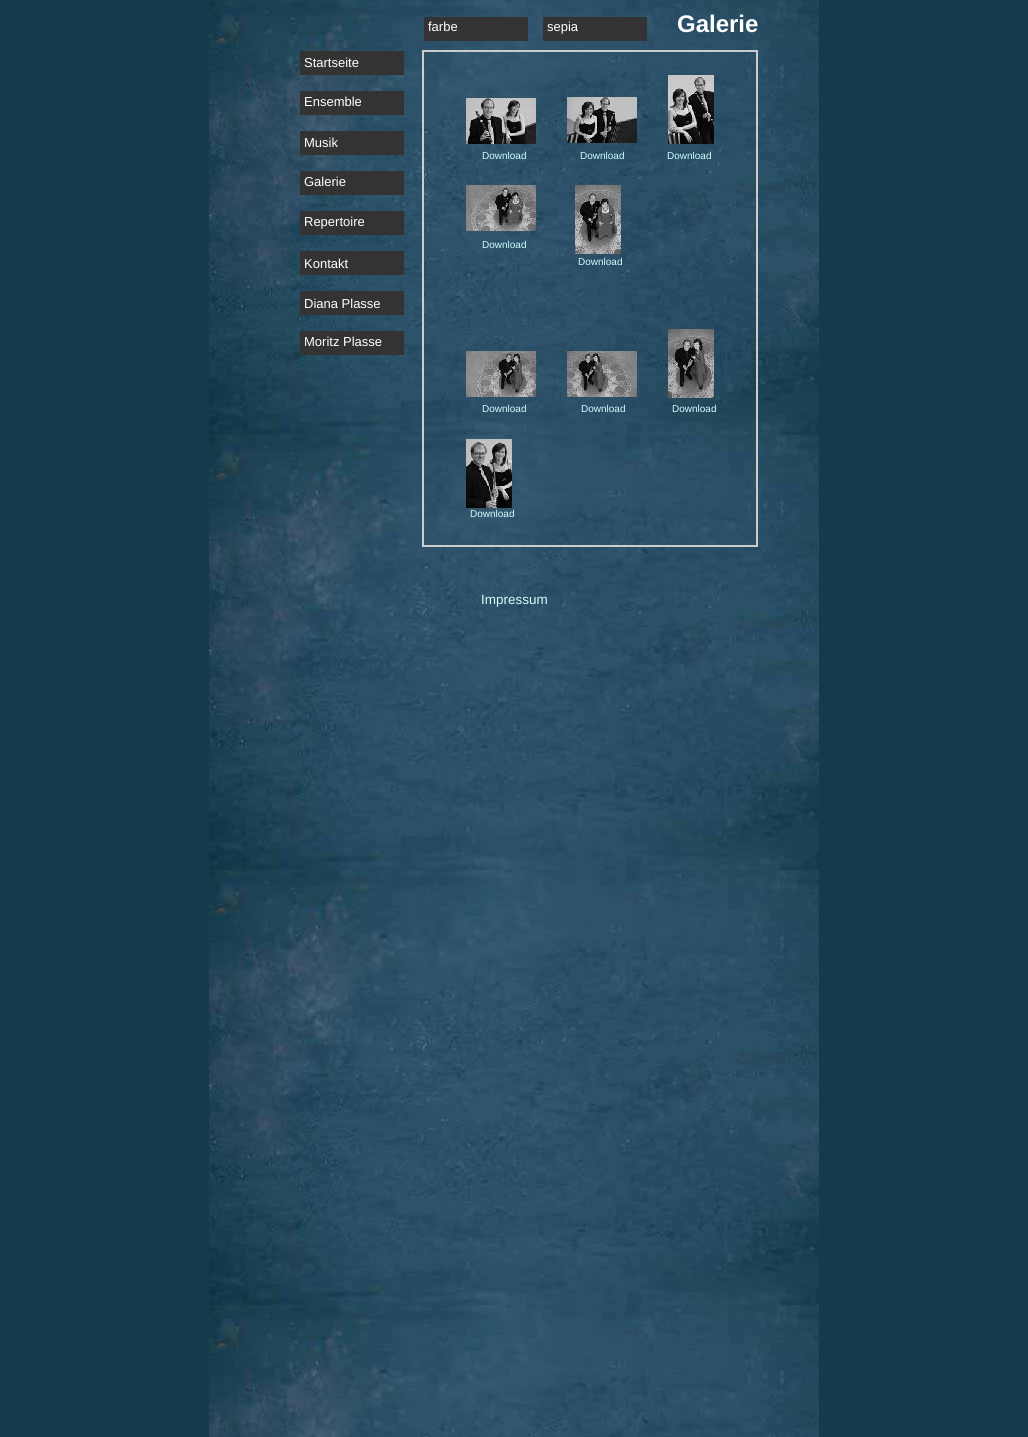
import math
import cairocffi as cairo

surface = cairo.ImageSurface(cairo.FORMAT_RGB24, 1028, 1437)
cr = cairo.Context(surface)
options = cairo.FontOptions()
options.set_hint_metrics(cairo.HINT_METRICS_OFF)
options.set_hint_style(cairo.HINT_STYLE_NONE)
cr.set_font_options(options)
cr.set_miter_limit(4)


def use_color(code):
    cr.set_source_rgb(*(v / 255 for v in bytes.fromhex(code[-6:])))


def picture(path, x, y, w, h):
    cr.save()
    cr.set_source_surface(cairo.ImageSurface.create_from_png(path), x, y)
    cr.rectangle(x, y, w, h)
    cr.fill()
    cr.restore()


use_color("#153a4c")
cr.paint()
picture("img1.png", 209, 0, 610, 1437)
use_color("#333333")
cr.rectangle(424, 17, 104, 24)
cr.fill()
cr.rectangle(543, 17, 104, 24)
cr.fill()
cr.select_font_face("Liberation Sans", cairo.FONT_SLANT_NORMAL, cairo.FONT_WEIGHT_BOLD)
cr.set_font_size(24)
use_color("#ffffff")
cr.move_to(677, 32)
cr.show_text("Galerie")
cr.select_font_face("Liberation Sans")
cr.set_font_size(13)
cr.move_to(428, 31)
cr.show_text("farbe")
cr.move_to(547, 31)
cr.show_text("sepia")
use_color("#333333")
cr.rectangle(300, 51, 104, 24)
cr.fill()
picture("img2.png", 422, 50, 336, 497)
use_color("#ffffff")
cr.move_to(304, 67)
cr.show_text("Startseite")
use_color("#333333")
cr.rectangle(300, 91, 104, 24)
cr.fill()
picture("img3.png", 668, 75, 46, 69)
use_color("#ffffff")
cr.move_to(304, 106)
cr.show_text("Ensemble")
picture("img4.png", 466, 98, 70, 46)
picture("img5.png", 567, 97, 70, 46)
use_color("#333333")
cr.rectangle(300, 131, 104, 24)
cr.fill()
use_color("#ffffff")
cr.move_to(304, 147)
cr.show_text("Musik")
cr.set_font_size(10)
use_color("#ccffff")
cr.move_to(482, 159)
cr.show_text("Download")
cr.move_to(580, 159)
cr.show_text("Download")
cr.move_to(667, 159)
cr.show_text("Download")
use_color("#333333")
cr.rectangle(300, 171, 104, 24)
cr.fill()
cr.set_font_size(13)
use_color("#ffffff")
cr.move_to(304, 186)
cr.show_text("Galerie")
use_color("#333333")
cr.rectangle(300, 211, 104, 24)
cr.fill()
picture("img6.png", 466, 185, 70, 46)
picture("img7.png", 575, 185, 46, 69)
use_color("#ffffff")
cr.move_to(304, 226)
cr.show_text("Repertoire")
cr.set_font_size(10)
use_color("#ccffff")
cr.move_to(482, 248)
cr.show_text("Download")
use_color("#333333")
cr.rectangle(300, 251, 104, 24)
cr.fill()
use_color("#ccffff")
cr.move_to(578, 265)
cr.show_text("Download")
cr.set_font_size(13)
use_color("#ffffff")
cr.move_to(304, 268)
cr.show_text("Kontakt")
use_color("#333333")
cr.rectangle(300, 291, 104, 24)
cr.fill()
use_color("#ffffff")
cr.move_to(304, 308)
cr.show_text("Diana Plasse")
use_color("#333333")
cr.rectangle(300, 331, 104, 24)
cr.fill()
picture("img8.png", 668, 329, 46, 69)
use_color("#ffffff")
cr.move_to(304, 346)
cr.show_text("Moritz Plasse")
picture("img9.png", 466, 351, 70, 46)
picture("img10.png", 567, 351, 70, 46)
cr.set_font_size(10)
use_color("#ccffff")
cr.move_to(482, 412)
cr.show_text("Download")
cr.move_to(581, 412)
cr.show_text("Download")
cr.move_to(672, 412)
cr.show_text("Download")
picture("img11.png", 466, 439, 46, 69)
cr.move_to(470, 517)
cr.show_text("Download")
cr.set_font_size(13.5)
cr.move_to(481, 604)
cr.show_text("Impressum")
surface.write_to_png("result.png")
